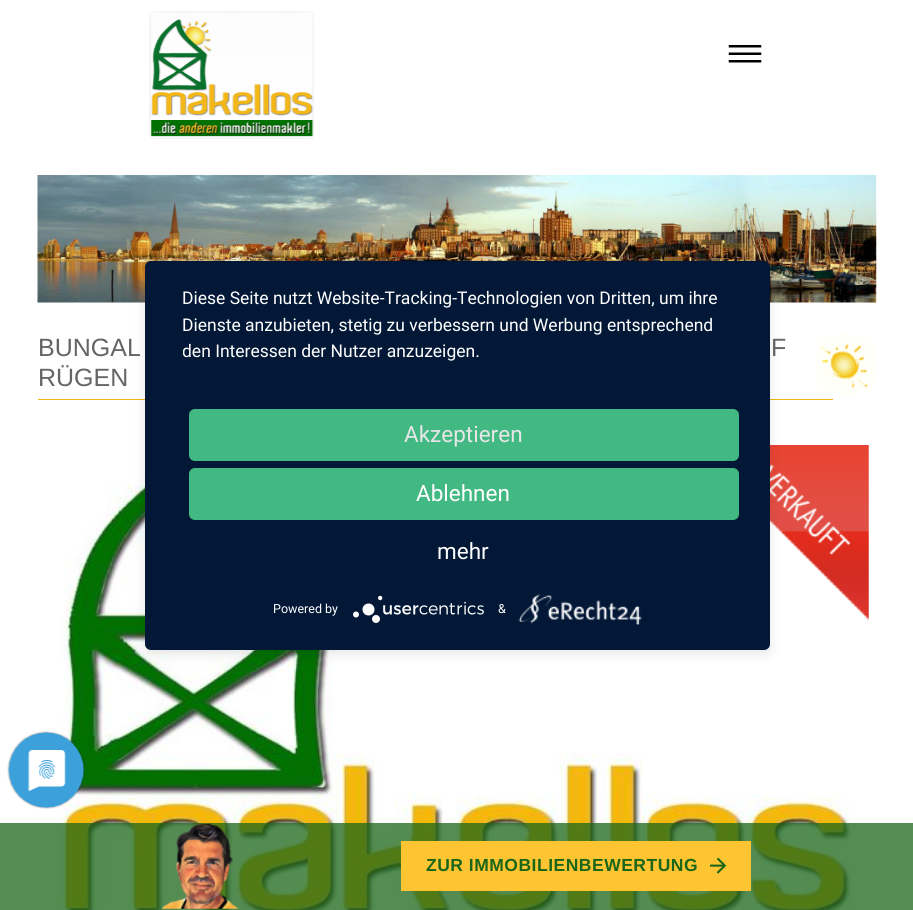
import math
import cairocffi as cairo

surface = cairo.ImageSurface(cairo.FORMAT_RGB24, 913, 910)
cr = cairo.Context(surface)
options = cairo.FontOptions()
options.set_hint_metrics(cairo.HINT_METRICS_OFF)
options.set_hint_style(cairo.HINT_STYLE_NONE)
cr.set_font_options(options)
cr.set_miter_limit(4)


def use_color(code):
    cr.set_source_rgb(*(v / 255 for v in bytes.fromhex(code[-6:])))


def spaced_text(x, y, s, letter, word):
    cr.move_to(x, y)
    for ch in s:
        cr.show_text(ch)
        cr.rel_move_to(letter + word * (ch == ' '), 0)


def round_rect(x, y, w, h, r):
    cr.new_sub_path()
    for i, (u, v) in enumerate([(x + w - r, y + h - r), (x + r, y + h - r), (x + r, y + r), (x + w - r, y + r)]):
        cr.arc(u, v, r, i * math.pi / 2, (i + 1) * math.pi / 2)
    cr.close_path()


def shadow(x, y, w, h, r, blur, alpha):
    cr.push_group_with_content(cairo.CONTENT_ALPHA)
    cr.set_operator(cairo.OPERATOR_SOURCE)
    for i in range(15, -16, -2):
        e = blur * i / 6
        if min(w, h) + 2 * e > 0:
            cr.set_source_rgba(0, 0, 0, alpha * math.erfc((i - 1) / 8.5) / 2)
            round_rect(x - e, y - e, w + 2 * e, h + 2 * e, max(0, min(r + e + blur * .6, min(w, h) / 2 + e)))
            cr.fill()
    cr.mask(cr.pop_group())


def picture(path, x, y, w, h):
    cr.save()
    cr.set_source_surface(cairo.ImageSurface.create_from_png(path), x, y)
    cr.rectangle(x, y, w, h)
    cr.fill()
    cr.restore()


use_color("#ffffff")
cr.paint()
picture("img1.png", 149, 11, 165, 128)
picture("img2.png", 728, 45, 34, 18)
picture("img6.png", 37, 175, 840, 128)
use_color("#f3b60d")
cr.rectangle(38, 399, 795, 1)
cr.fill()
picture("img8.png", 57, 445, 794, 465)
picture("img9.png", 770, 445, 99, 177)
use_color("#000000")
shadow(145, 265, 625, 389, 6, 6, 0.1)
picture("img7.png", 814, 333, 62, 62)
cr.save()
round_rect(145, 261, 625, 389, 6)
cr.clip()
shadow(145, 269, 625, 389, 0, 22.5, 0.3)
cr.restore()
use_color("#021836")
round_rect(145, 261, 625, 389, 6)
cr.fill()
cr.select_font_face("Roboto")
cr.set_font_size(17.5)
use_color("#ffffff")
cr.move_to(182, 304)
cr.show_text("Diese Seite nutzt Website-Tracking-Technologien von Dritten, um ihre")
cr.move_to(182, 331)
cr.show_text("Dienste anzubieten, stetig zu verbessern und Werbung entsprechend")
cr.save()
cr.rectangle(183, 286, 550, 104)
cr.clip()
cr.move_to(182, 357)
cr.show_text("den Interessen der Nutzer anzuzeigen.")
cr.restore()
use_color("#42b983")
round_rect(189, 409, 550, 52, 6)
cr.fill()
cr.set_font_size(22.5)
use_color("#e6e6e6")
cr.move_to(404, 442)
cr.show_text("Akzeptieren")
use_color("#42b983")
round_rect(189, 468, 550, 52, 6)
cr.fill()
use_color("#ffffff")
cr.move_to(416, 501)
cr.show_text("Ablehnen")
cr.move_to(437, 559)
cr.show_text("mehr")
cr.set_font_size(12.5)
cr.move_to(273, 613)
cr.show_text("Powered by")
picture("img3.png", 353, 595, 131, 28)
cr.move_to(498, 613)
cr.show_text("&")
picture("img4.png", 518, 594, 124, 31)
picture("img5.png", 7, 731, 78, 78)
cr.select_font_face("Liberation Sans")
cr.set_font_size(25)
use_color("#656565")
cr.move_to(38, 356)
cr.show_text("BUNGAL")
cr.move_to(771, 356)
cr.show_text("F")
cr.move_to(38, 386)
cr.show_text("RÜGEN")
cr.set_source_rgba(0.106, 0.4, 0.094, 0.75)
cr.rectangle(0, 823, 913, 87)
cr.fill()
picture("img10.png", 162, 823, 77, 86)
use_color("#ffc431")
cr.rectangle(401, 841, 350, 50)
cr.fill()
cr.select_font_face("Liberation Sans", cairo.FONT_SLANT_NORMAL, cairo.FONT_WEIGHT_BOLD)
cr.set_font_size(17.5)
use_color("#1b6618")
spaced_text(426, 871, "ZUR IMMOBILIENBEWERTUNG", 0.5, 0)
picture("img11.png", 710, 858, 16, 16)
surface.write_to_png("result.png")
